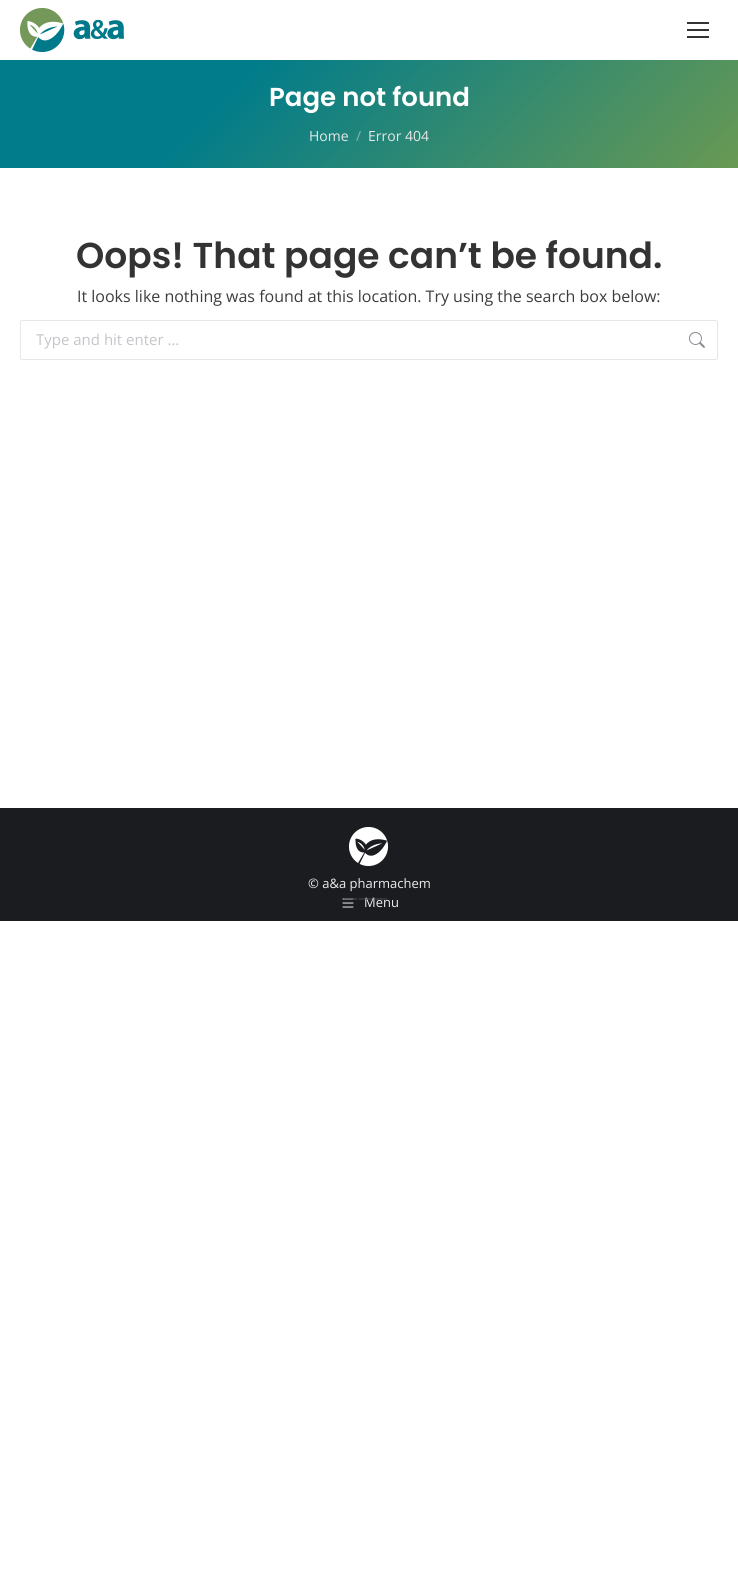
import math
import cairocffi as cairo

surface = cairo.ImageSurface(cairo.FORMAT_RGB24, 738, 1571)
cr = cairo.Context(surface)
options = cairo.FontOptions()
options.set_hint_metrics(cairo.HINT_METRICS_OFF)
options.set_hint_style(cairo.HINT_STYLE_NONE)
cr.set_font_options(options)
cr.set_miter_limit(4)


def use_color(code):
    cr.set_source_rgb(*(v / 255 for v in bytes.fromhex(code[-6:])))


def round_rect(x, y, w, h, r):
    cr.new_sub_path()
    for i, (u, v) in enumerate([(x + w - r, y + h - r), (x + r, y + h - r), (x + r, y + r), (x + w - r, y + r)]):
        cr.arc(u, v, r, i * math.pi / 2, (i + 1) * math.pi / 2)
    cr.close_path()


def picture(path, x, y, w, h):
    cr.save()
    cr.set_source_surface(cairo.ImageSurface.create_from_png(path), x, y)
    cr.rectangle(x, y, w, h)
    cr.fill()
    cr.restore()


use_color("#ffffff")
cr.paint()
picture("img1.png", 20, 8, 104, 44)
use_color("#333333")
cr.rectangle(687, 22, 22, 2)
cr.fill()
cr.rectangle(687, 29, 22, 2)
cr.fill()
cr.rectangle(687, 36, 22, 2)
cr.fill()
gradient = cairo.LinearGradient(157, -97, 581, 326)
gradient.add_color_stop_rgba(0.3, 0, 0.486, 0.545, 1)
gradient.add_color_stop_rgba(1, 0.412, 0.6, 0.325, 1)
cr.set_source(gradient)
cr.rectangle(0, 60, 738, 108)
cr.fill()
cr.select_font_face("Poppins SemiBold")
cr.set_font_size(26)
use_color("#ffffff")
cr.move_to(269, 106)
cr.show_text("Page not found")
cr.select_font_face("Open Sans")
cr.set_font_size(14)
use_color("#e8e8e8")
cr.move_to(309, 141)
cr.show_text("Home")
use_color("#84b7b1")
cr.move_to(356, 141)
cr.show_text("/")
use_color("#e8e8e8")
cr.move_to(368, 141)
cr.show_text("Error 404")
cr.select_font_face("Poppins SemiBold")
cr.set_font_size(36)
use_color("#333333")
cr.move_to(76, 268)
cr.show_text("Oops! That page can’t be found.")
cr.select_font_face("Open Sans")
cr.set_font_size(16)
use_color("#3d3d3d")
cr.move_to(77, 302)
cr.show_text("It looks like nothing was found at this location. Try using the search box below:")
round_rect(20.5, 320.5, 697, 39, 1.5)
use_color("#e7e7e7")
cr.set_line_width(1)
cr.stroke()
cr.set_font_size(15)
use_color("#c4c5c9")
cr.move_to(36, 345)
cr.show_text("Type and hit enter …")
picture("img2.png", 689, 332, 16, 16)
use_color("#1a1c20")
cr.rectangle(0, 808, 738, 113)
cr.fill()
picture("img3.png", 349, 827, 39, 39)
cr.set_font_size(13)
use_color("#eeeeee")
cr.move_to(308, 888)
cr.show_text("© a&a pharmachem")
picture("img4.png", 342, 898, 12, 10)
cr.move_to(364, 907)
cr.show_text("Menu")
cr.set_font_size(15)
use_color("#444549")
cr.move_to(343, 903)
cr.show_text("———")
surface.write_to_png("result.png")
